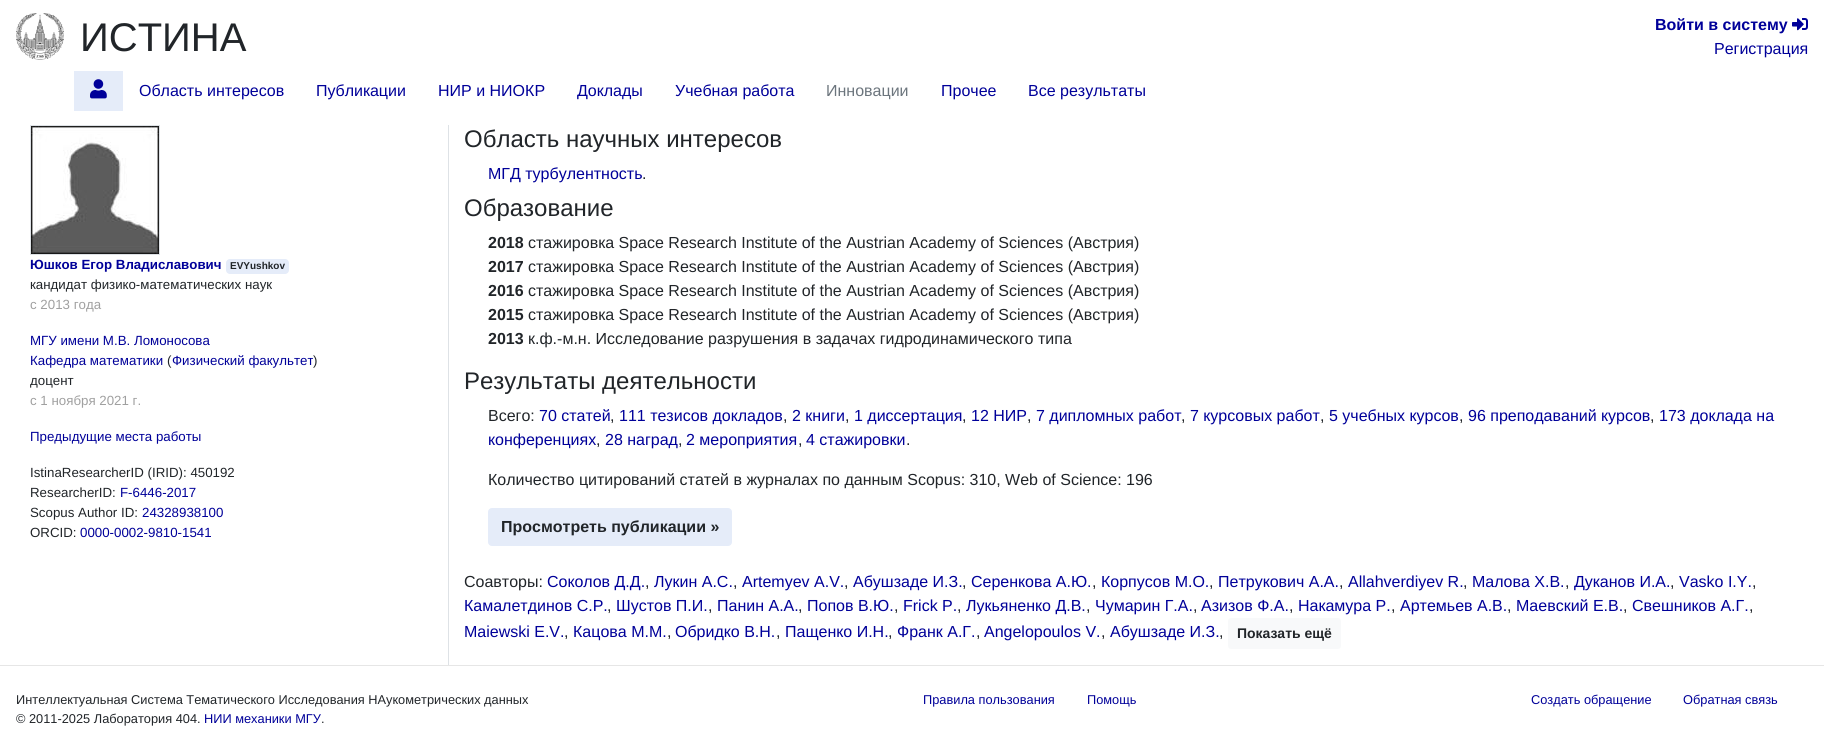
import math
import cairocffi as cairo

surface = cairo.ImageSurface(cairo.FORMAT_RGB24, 1824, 753)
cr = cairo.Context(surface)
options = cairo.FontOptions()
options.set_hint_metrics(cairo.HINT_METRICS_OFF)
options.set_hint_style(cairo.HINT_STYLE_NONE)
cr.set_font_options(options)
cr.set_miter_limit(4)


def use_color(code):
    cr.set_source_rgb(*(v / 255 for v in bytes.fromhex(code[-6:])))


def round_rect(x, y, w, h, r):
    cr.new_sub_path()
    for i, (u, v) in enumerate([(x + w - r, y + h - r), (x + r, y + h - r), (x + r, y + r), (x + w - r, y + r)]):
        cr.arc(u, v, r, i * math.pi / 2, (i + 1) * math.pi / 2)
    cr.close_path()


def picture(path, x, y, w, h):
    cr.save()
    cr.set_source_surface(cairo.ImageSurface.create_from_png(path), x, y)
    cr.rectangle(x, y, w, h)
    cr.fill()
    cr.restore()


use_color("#ffffff")
cr.paint()
picture("img1.png", 16, 13, 48, 47)
cr.select_font_face("Liberation Sans")
cr.set_font_size(40)
use_color("#212529")
cr.move_to(80, 51)
cr.show_text("ИСТИНА")
cr.select_font_face("Liberation Sans", cairo.FONT_SLANT_NORMAL, cairo.FONT_WEIGHT_BOLD)
cr.set_font_size(16)
use_color("#000099")
cr.move_to(1655, 30)
cr.show_text("Войти в систему")
picture("img2.png", 1792, 18, 16, 13)
cr.select_font_face("Liberation Sans")
cr.move_to(1714, 54)
cr.show_text("Регистрация")
use_color("#e5ecf9")
cr.rectangle(74, 71, 49, 40)
cr.fill()
picture("img3.png", 90, 79, 17, 20)
use_color("#000099")
cr.move_to(139, 96)
cr.show_text("Область интересов")
cr.move_to(316, 96)
cr.show_text("Публикации")
cr.move_to(438, 96)
cr.show_text("НИР и НИОКР")
cr.move_to(577, 96)
cr.show_text("Доклады")
cr.move_to(675, 96)
cr.show_text("Учебная работа")
use_color("#6c757d")
cr.move_to(826, 96)
cr.show_text("Инновации")
use_color("#000099")
cr.move_to(941, 96)
cr.show_text("Прочее")
cr.move_to(1028, 96)
cr.show_text("Все результаты")
use_color("#dee2e6")
cr.rectangle(448, 125, 1, 540)
cr.fill()
cr.rectangle(30.5, 125.5, 129, 129)
cr.set_line_width(1)
cr.stroke()
picture("img4.png", 31, 126, 128, 128)
cr.select_font_face("Liberation Sans", cairo.FONT_SLANT_NORMAL, cairo.FONT_WEIGHT_BOLD)
cr.set_font_size(13.3)
use_color("#000099")
cr.move_to(30, 269)
cr.show_text("Юшков Егор Владиславович")
use_color("#e5ecf9")
round_rect(226, 259, 63, 15, 4)
cr.fill()
cr.set_font_size(10)
use_color("#212529")
cr.move_to(230, 269)
cr.show_text("EVYushkov")
cr.select_font_face("Liberation Sans")
cr.set_font_size(13.3)
cr.move_to(30, 289)
cr.show_text("кандидат физико-математических наук")
use_color("#a0a0a0")
cr.move_to(30, 309)
cr.show_text("с 2013 года")
use_color("#000099")
cr.move_to(30, 345)
cr.show_text("МГУ имени М.В. Ломоносова")
cr.move_to(30, 365)
cr.show_text("Кафедра математики")
use_color("#212529")
cr.move_to(167, 365)
cr.show_text("(")
use_color("#000099")
cr.move_to(172, 365)
cr.show_text("Физический факультет")
use_color("#212529")
cr.move_to(313, 365)
cr.show_text(")")
cr.move_to(30, 385)
cr.show_text("доцент")
use_color("#a0a0a0")
cr.move_to(30, 405)
cr.show_text("с 1 ноября 2021 г.")
use_color("#000099")
cr.move_to(30, 441)
cr.show_text("Предыдущие места работы")
use_color("#212529")
cr.move_to(30, 477)
cr.show_text("IstinaResearcherID (IRID): 450192")
cr.move_to(30, 497)
cr.show_text("ResearcherID:")
use_color("#000099")
cr.move_to(120, 497)
cr.show_text("F-6446-2017")
use_color("#212529")
cr.move_to(30, 517)
cr.show_text("Scopus Author ID:")
use_color("#000099")
cr.move_to(142, 517)
cr.show_text("24328938100")
use_color("#212529")
cr.move_to(30, 537)
cr.show_text("ORCID:")
use_color("#000099")
cr.move_to(80, 537)
cr.show_text("0000-0002-9810-1541")
cr.set_font_size(24)
use_color("#212529")
cr.move_to(464, 147)
cr.show_text("Область научных интересов")
cr.set_font_size(16)
use_color("#000099")
cr.move_to(488, 179)
cr.show_text("МГД турбулентность")
use_color("#212529")
cr.move_to(642, 179)
cr.show_text(".")
cr.set_font_size(24)
cr.move_to(464, 216)
cr.show_text("Образование")
cr.select_font_face("Liberation Sans", cairo.FONT_SLANT_NORMAL, cairo.FONT_WEIGHT_BOLD)
cr.set_font_size(16)
cr.move_to(488, 248)
cr.show_text("2018")
cr.select_font_face("Liberation Sans")
cr.move_to(528, 248)
cr.show_text("стажировка Space Research Institute of the Austrian Academy of Sciences (Австрия)")
cr.select_font_face("Liberation Sans", cairo.FONT_SLANT_NORMAL, cairo.FONT_WEIGHT_BOLD)
cr.move_to(488, 272)
cr.show_text("2017")
cr.select_font_face("Liberation Sans")
cr.move_to(528, 272)
cr.show_text("стажировка Space Research Institute of the Austrian Academy of Sciences (Австрия)")
cr.select_font_face("Liberation Sans", cairo.FONT_SLANT_NORMAL, cairo.FONT_WEIGHT_BOLD)
cr.move_to(488, 296)
cr.show_text("2016")
cr.select_font_face("Liberation Sans")
cr.move_to(528, 296)
cr.show_text("стажировка Space Research Institute of the Austrian Academy of Sciences (Австрия)")
cr.select_font_face("Liberation Sans", cairo.FONT_SLANT_NORMAL, cairo.FONT_WEIGHT_BOLD)
cr.move_to(488, 320)
cr.show_text("2015")
cr.select_font_face("Liberation Sans")
cr.move_to(528, 320)
cr.show_text("стажировка Space Research Institute of the Austrian Academy of Sciences (Австрия)")
cr.select_font_face("Liberation Sans", cairo.FONT_SLANT_NORMAL, cairo.FONT_WEIGHT_BOLD)
cr.move_to(488, 344)
cr.show_text("2013")
cr.select_font_face("Liberation Sans")
cr.move_to(528, 344)
cr.show_text("к.ф.-м.н. Исследование разрушения в задачах гидродинамического типа")
cr.set_font_size(24)
cr.move_to(464, 389)
cr.show_text("Результаты деятельности")
cr.set_font_size(16)
cr.move_to(488, 421)
cr.show_text("Всего:")
use_color("#000099")
cr.move_to(539, 421)
cr.show_text("70 статей")
use_color("#212529")
cr.move_to(610, 421)
cr.show_text(",")
use_color("#000099")
cr.move_to(619, 421)
cr.show_text("111 тезисов докладов")
use_color("#212529")
cr.move_to(783, 421)
cr.show_text(",")
use_color("#000099")
cr.move_to(792, 421)
cr.show_text("2 книги")
use_color("#212529")
cr.move_to(845, 421)
cr.show_text(",")
use_color("#000099")
cr.move_to(854, 421)
cr.show_text("1 диссертация")
use_color("#212529")
cr.move_to(962, 421)
cr.show_text(",")
use_color("#000099")
cr.move_to(971, 421)
cr.show_text("12 НИР")
use_color("#212529")
cr.move_to(1027, 421)
cr.show_text(",")
use_color("#000099")
cr.move_to(1036, 421)
cr.show_text("7 дипломных работ")
use_color("#212529")
cr.move_to(1181, 421)
cr.show_text(",")
use_color("#000099")
cr.move_to(1190, 421)
cr.show_text("7 курсовых работ")
use_color("#212529")
cr.move_to(1320, 421)
cr.show_text(",")
use_color("#000099")
cr.move_to(1329, 421)
cr.show_text("5 учебных курсов")
use_color("#212529")
cr.move_to(1459, 421)
cr.show_text(",")
use_color("#000099")
cr.move_to(1468, 421)
cr.show_text("96 преподаваний курсов")
use_color("#212529")
cr.move_to(1650, 421)
cr.show_text(",")
use_color("#000099")
cr.move_to(1659, 421)
cr.show_text("173 доклада на")
cr.move_to(488, 445)
cr.show_text("конференциях")
use_color("#212529")
cr.move_to(596, 445)
cr.show_text(",")
use_color("#000099")
cr.move_to(605, 445)
cr.show_text("28 наград")
use_color("#212529")
cr.move_to(678, 445)
cr.show_text(",")
use_color("#000099")
cr.move_to(686, 445)
cr.show_text("2 мероприятия")
use_color("#212529")
cr.move_to(798, 445)
cr.show_text(",")
use_color("#000099")
cr.move_to(806, 445)
cr.show_text("4 стажировки")
use_color("#212529")
cr.move_to(906, 445)
cr.show_text(".")
cr.move_to(488, 485)
cr.show_text("Количество цитирований статей в журналах по данным Scopus: 310, Web of Science: 196")
use_color("#e5ecf9")
round_rect(488.5, 508.5, 243, 37, 3.5)
cr.fill_preserve()
cr.stroke()
cr.select_font_face("Liberation Sans", cairo.FONT_SLANT_NORMAL, cairo.FONT_WEIGHT_BOLD)
use_color("#212529")
cr.move_to(501, 532)
cr.show_text("Просмотреть публикации »")
cr.select_font_face("Liberation Sans")
cr.move_to(464, 587)
cr.show_text("Соавторы:")
use_color("#000099")
cr.move_to(547, 587)
cr.show_text("Соколов Д.Д.")
use_color("#212529")
cr.move_to(645, 587)
cr.show_text(",")
use_color("#000099")
cr.move_to(654, 587)
cr.show_text("Лукин А.С.")
use_color("#212529")
cr.move_to(733, 587)
cr.show_text(",")
use_color("#000099")
cr.move_to(742, 587)
cr.show_text("Artemyev A.V.")
use_color("#212529")
cr.move_to(844, 587)
cr.show_text(",")
use_color("#000099")
cr.move_to(853, 587)
cr.show_text("Абушзаде И.З.")
use_color("#212529")
cr.move_to(962, 587)
cr.show_text(",")
use_color("#000099")
cr.move_to(971, 587)
cr.show_text("Серенкова А.Ю.")
use_color("#212529")
cr.move_to(1092, 587)
cr.show_text(",")
use_color("#000099")
cr.move_to(1101, 587)
cr.show_text("Корпусов М.О.")
use_color("#212529")
cr.move_to(1209, 587)
cr.show_text(",")
use_color("#000099")
cr.move_to(1218, 587)
cr.show_text("Петрукович А.А.")
use_color("#212529")
cr.move_to(1339, 587)
cr.show_text(",")
use_color("#000099")
cr.move_to(1348, 587)
cr.show_text("Allahverdiyev R.")
use_color("#212529")
cr.move_to(1463, 587)
cr.show_text(",")
use_color("#000099")
cr.move_to(1472, 587)
cr.show_text("Малова Х.В.")
use_color("#212529")
cr.move_to(1565, 587)
cr.show_text(",")
use_color("#000099")
cr.move_to(1574, 587)
cr.show_text("Дуканов И.А.")
use_color("#212529")
cr.move_to(1670, 587)
cr.show_text(",")
use_color("#000099")
cr.move_to(1679, 587)
cr.show_text("Vasko I.Y.")
use_color("#212529")
cr.move_to(1752, 587)
cr.show_text(",")
use_color("#000099")
cr.move_to(464, 611)
cr.show_text("Камалетдинов С.Р.")
use_color("#212529")
cr.move_to(607, 611)
cr.show_text(",")
use_color("#000099")
cr.move_to(616, 611)
cr.show_text("Шустов П.И.")
use_color("#212529")
cr.move_to(708, 611)
cr.show_text(",")
use_color("#000099")
cr.move_to(717, 611)
cr.show_text("Панин А.А.")
use_color("#212529")
cr.move_to(798, 611)
cr.show_text(",")
use_color("#000099")
cr.move_to(807, 611)
cr.show_text("Попов В.Ю.")
use_color("#212529")
cr.move_to(894, 611)
cr.show_text(",")
use_color("#000099")
cr.move_to(903, 611)
cr.show_text("Frick P.")
use_color("#212529")
cr.move_to(957, 611)
cr.show_text(",")
use_color("#000099")
cr.move_to(966, 611)
cr.show_text("Лукьяненко Д.В.")
use_color("#212529")
cr.move_to(1086, 611)
cr.show_text(",")
use_color("#000099")
cr.move_to(1095, 611)
cr.show_text("Чумарин Г.А.")
use_color("#212529")
cr.move_to(1193, 611)
cr.show_text(",")
use_color("#000099")
cr.move_to(1201, 611)
cr.show_text("Азизов Ф.А.")
use_color("#212529")
cr.move_to(1289, 611)
cr.show_text(",")
use_color("#000099")
cr.move_to(1298, 611)
cr.show_text("Накамура Р.")
use_color("#212529")
cr.move_to(1391, 611)
cr.show_text(",")
use_color("#000099")
cr.move_to(1400, 611)
cr.show_text("Артемьев А.В.")
use_color("#212529")
cr.move_to(1507, 611)
cr.show_text(",")
use_color("#000099")
cr.move_to(1516, 611)
cr.show_text("Маевский Е.В.")
use_color("#212529")
cr.move_to(1623, 611)
cr.show_text(",")
use_color("#000099")
cr.move_to(1632, 611)
cr.show_text("Свешников А.Г.")
use_color("#212529")
cr.move_to(1749, 611)
cr.show_text(",")
use_color("#000099")
cr.move_to(464, 637)
cr.show_text("Maiewski E.V.")
use_color("#212529")
cr.move_to(564, 637)
cr.show_text(",")
use_color("#000099")
cr.move_to(573, 637)
cr.show_text("Кацова М.М.")
use_color("#212529")
cr.move_to(667, 637)
cr.show_text(",")
use_color("#000099")
cr.move_to(675, 637)
cr.show_text("Обридко В.Н.")
use_color("#212529")
cr.move_to(776, 637)
cr.show_text(",")
use_color("#000099")
cr.move_to(785, 637)
cr.show_text("Пащенко И.Н.")
use_color("#212529")
cr.move_to(888, 637)
cr.show_text(",")
use_color("#000099")
cr.move_to(897, 637)
cr.show_text("Франк А.Г.")
use_color("#212529")
cr.move_to(976, 637)
cr.show_text(",")
use_color("#000099")
cr.move_to(984, 637)
cr.show_text("Angelopoulos V.")
use_color("#212529")
cr.move_to(1101, 637)
cr.show_text(",")
use_color("#000099")
cr.move_to(1110, 637)
cr.show_text("Aбушзаде И.З.")
use_color("#212529")
cr.move_to(1219, 637)
cr.show_text(",")
use_color("#f8f9fa")
round_rect(1228, 618, 113, 31, 3)
cr.fill()
cr.select_font_face("Liberation Sans", cairo.FONT_SLANT_NORMAL, cairo.FONT_WEIGHT_BOLD)
cr.set_font_size(14)
use_color("#212529")
cr.move_to(1237, 638)
cr.show_text("Показать ещё")
use_color("#e6e6e6")
cr.rectangle(0, 665, 1824, 1)
cr.fill()
cr.select_font_face("Liberation Sans")
cr.set_font_size(12.8)
use_color("#212529")
cr.move_to(16, 704)
cr.show_text("Интеллектуальная Система Тематического Исследования НАукометрических данных")
cr.move_to(16, 723)
cr.show_text("© 2011-2025 Лаборатория 404.")
use_color("#000099")
cr.move_to(204, 723)
cr.show_text("НИИ механики МГУ")
use_color("#212529")
cr.move_to(321, 723)
cr.show_text(".")
use_color("#000099")
cr.move_to(923, 704)
cr.show_text("Правила пользования")
cr.move_to(1087, 704)
cr.show_text("Помощь")
cr.move_to(1531, 704)
cr.show_text("Создать обращение")
cr.move_to(1683, 704)
cr.show_text("Обратная связь")
surface.write_to_png("result.png")
